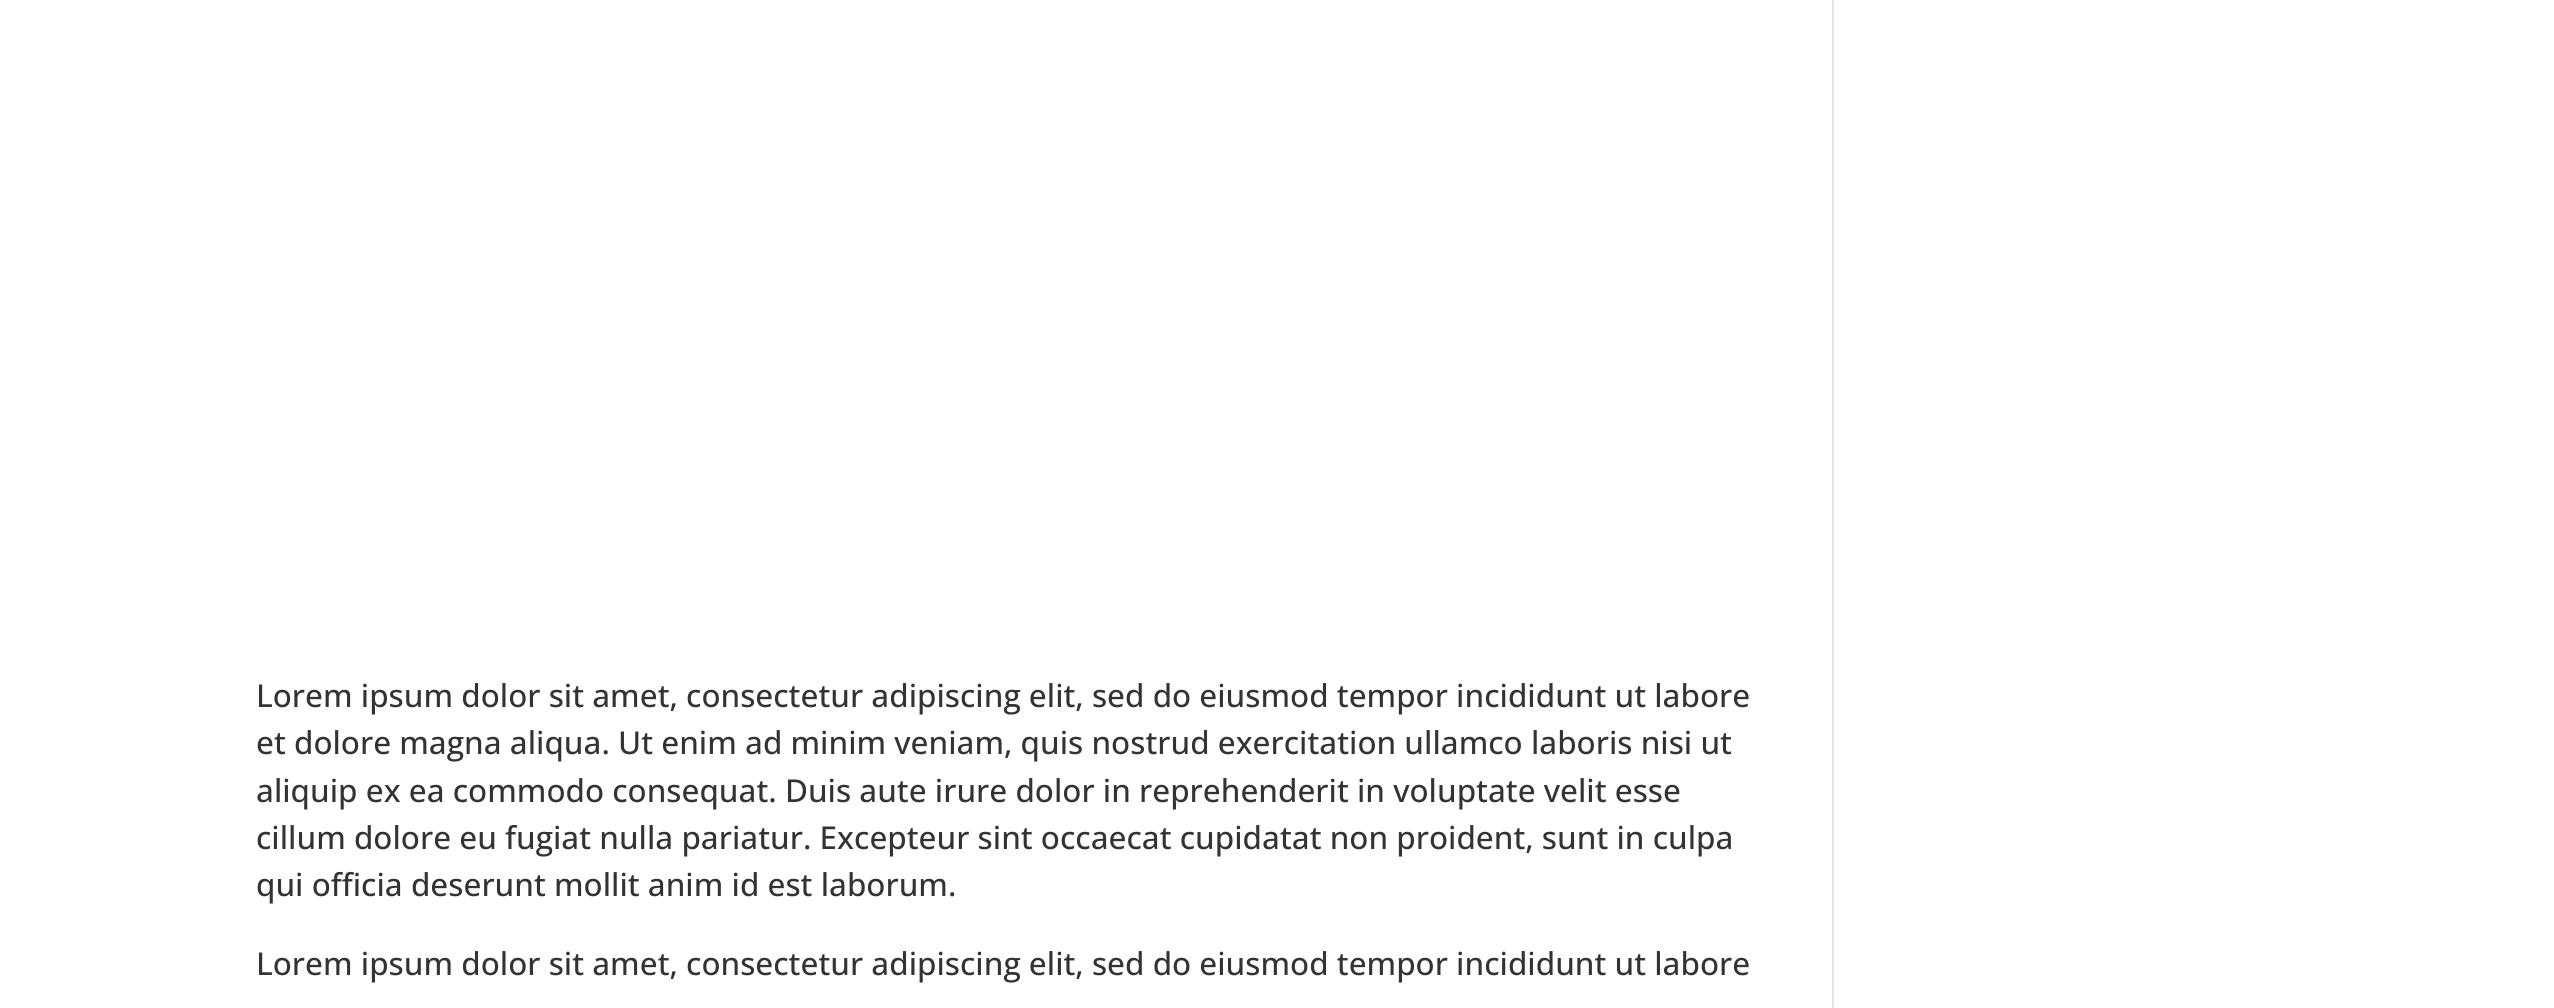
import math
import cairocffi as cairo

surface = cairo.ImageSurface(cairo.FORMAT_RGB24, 2554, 1008)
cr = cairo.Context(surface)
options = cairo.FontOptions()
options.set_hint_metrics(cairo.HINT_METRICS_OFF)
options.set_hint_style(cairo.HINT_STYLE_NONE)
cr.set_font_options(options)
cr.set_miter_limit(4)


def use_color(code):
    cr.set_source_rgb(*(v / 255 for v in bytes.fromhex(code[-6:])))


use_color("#ffffff")
cr.paint()
cr.select_font_face("Open Sans Medium")
cr.set_font_size(31.5)
use_color("#333333")
cr.move_to(256, 707)
cr.show_text("Lorem ipsum dolor sit amet, consectetur adipiscing elit, sed do eiusmod tempor incididunt ut labore")
cr.move_to(256, 754)
cr.show_text("et dolore magna aliqua. Ut enim ad minim veniam, quis nostrud exercitation ullamco laboris nisi ut")
cr.move_to(256, 802)
cr.show_text("aliquip ex ea commodo consequat. Duis aute irure dolor in reprehenderit in voluptate velit esse")
cr.move_to(256, 849)
cr.show_text("cillum dolore eu fugiat nulla pariatur. Excepteur sint occaecat cupidatat non proident, sunt in culpa")
cr.move_to(256, 896)
cr.show_text("qui officia deserunt mollit anim id est laborum.")
cr.move_to(256, 975)
cr.show_text("Lorem ipsum dolor sit amet, consectetur adipiscing elit, sed do eiusmod tempor incididunt ut labore")
use_color("#e2e2e2")
cr.rectangle(1832, 0, 2, 1008)
cr.fill()
surface.write_to_png("result.png")
